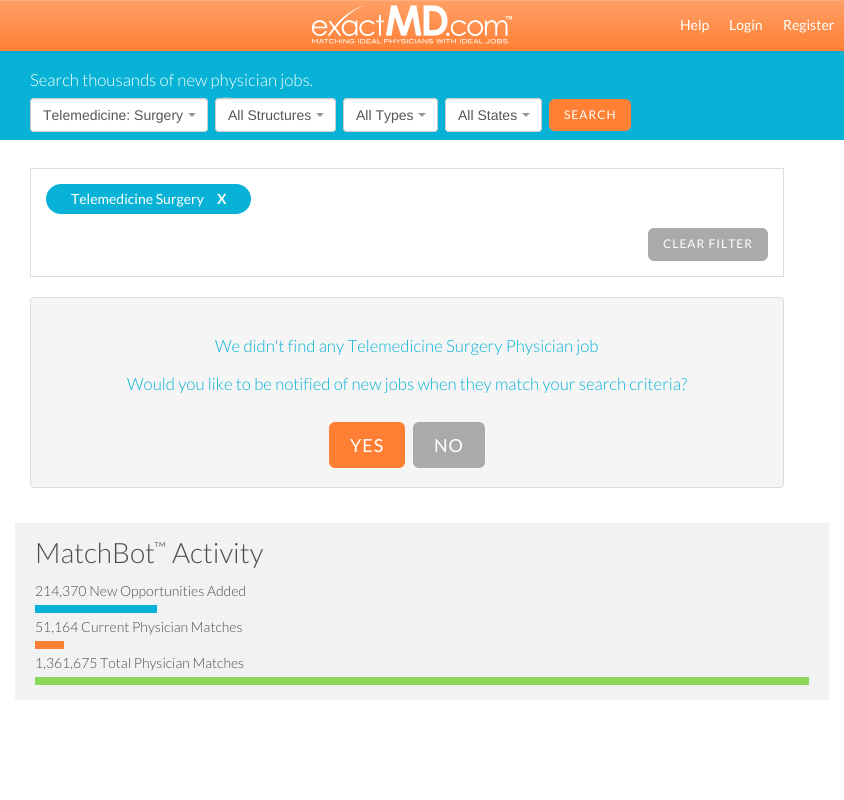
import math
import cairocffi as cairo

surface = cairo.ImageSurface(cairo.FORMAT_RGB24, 844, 800)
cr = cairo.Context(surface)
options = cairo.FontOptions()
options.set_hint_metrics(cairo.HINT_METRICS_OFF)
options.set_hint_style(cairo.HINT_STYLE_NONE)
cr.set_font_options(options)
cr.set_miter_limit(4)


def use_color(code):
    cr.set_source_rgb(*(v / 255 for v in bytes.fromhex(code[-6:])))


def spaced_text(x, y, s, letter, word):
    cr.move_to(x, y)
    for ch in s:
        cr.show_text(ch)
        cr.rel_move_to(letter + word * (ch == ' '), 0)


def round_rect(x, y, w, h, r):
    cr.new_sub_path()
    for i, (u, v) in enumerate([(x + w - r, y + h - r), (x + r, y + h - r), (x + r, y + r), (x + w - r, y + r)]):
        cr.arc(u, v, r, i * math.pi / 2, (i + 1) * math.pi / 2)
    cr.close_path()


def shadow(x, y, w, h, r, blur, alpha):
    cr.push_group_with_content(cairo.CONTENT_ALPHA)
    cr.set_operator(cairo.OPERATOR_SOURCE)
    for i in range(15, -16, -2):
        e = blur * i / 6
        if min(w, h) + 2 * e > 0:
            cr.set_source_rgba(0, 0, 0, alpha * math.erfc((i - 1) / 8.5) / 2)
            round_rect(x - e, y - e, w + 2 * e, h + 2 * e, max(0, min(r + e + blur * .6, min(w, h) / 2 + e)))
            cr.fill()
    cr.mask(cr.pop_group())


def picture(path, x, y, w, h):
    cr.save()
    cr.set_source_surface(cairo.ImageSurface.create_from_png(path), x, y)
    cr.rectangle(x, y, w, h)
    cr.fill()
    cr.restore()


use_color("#ffffff")
cr.paint()
use_color("#07b2d6")
cr.rectangle(0, 51, 844, 89)
cr.fill()
use_color("#000000")
shadow(0, 1, 844, 51, 0, 2.5, 0.07)
gradient = cairo.LinearGradient(422, 0, 422, 50)
gradient.add_color_stop_rgba(0, 1, 0.627, 0.404, 1)
gradient.add_color_stop_rgba(1, 1, 0.502, 0.204, 1)
cr.set_source(gradient)
cr.rectangle(0, 1, 844, 49)
cr.fill()
use_color("#ffae7d")
cr.rectangle(0, 0, 844, 1)
cr.fill()
use_color("#ff8034")
cr.rectangle(0, 50, 844, 1)
cr.fill()
picture("img1.png", 311, 5, 201, 39)
cr.select_font_face("Lato")
cr.set_font_size(14)
use_color("#ffffff")
cr.move_to(680, 30)
cr.show_text("Help")
cr.move_to(729, 30)
cr.show_text("Login")
cr.move_to(783, 30)
cr.show_text("Register")
cr.select_font_face("Lato Light")
cr.set_font_size(16.8)
cr.move_to(30, 86)
cr.show_text("Search thousands of new physician jobs.")
round_rect(30, 98, 178, 34, 4)
cr.fill()
use_color("#ececec")
cr.new_path()
cr.move_to(34, 100)
cr.line_to(204, 100)
cr.curve_to(206, 100, 207, 101, 207, 103)
cr.line_to(207, 102)
cr.curve_to(207, 100, 206, 99, 204, 99)
cr.line_to(34, 99)
cr.curve_to(32, 99, 31, 100, 31, 102)
cr.line_to(31, 103)
cr.curve_to(31, 101, 32, 100, 34, 100)
cr.close_path()
cr.fill()
round_rect(30.5, 98.5, 177, 33, 3.5)
use_color("#cccccc")
cr.set_line_width(1)
cr.stroke()
cr.select_font_face("Liberation Sans")
cr.set_font_size(14)
use_color("#555555")
cr.move_to(43, 120)
cr.show_text("Telemedicine: Surgery")
use_color("#999999")
cr.new_path()
cr.move_to(188, 113)
cr.line_to(196, 113)
cr.line_to(192, 117)
cr.close_path()
cr.fill()
use_color("#ffffff")
round_rect(215, 98, 121, 34, 4)
cr.fill()
use_color("#ececec")
cr.new_path()
cr.move_to(219, 100)
cr.line_to(332, 100)
cr.curve_to(334, 100, 335, 101, 335, 103)
cr.curve_to(335, 101, 334, 99, 332, 99)
cr.line_to(238, 99)
cr.curve_to(237, 99, 216, 94, 216, 103)
cr.curve_to(216, 101, 217, 100, 219, 100)
cr.close_path()
cr.fill()
round_rect(215.5, 98.5, 120, 33, 3.5)
use_color("#cccccc")
cr.stroke()
use_color("#555555")
cr.move_to(228, 120)
cr.show_text("All Structures")
use_color("#999999")
cr.new_path()
cr.move_to(316, 113)
cr.line_to(324, 113)
cr.line_to(320, 117)
cr.close_path()
cr.fill()
use_color("#ffffff")
round_rect(343, 98, 95, 34, 4)
cr.fill()
use_color("#ececec")
cr.new_path()
cr.move_to(347, 100)
cr.line_to(434, 100)
cr.curve_to(436, 100, 437, 101, 437, 103)
cr.curve_to(437, 95, 423, 99, 420, 99)
cr.line_to(362, 99)
cr.curve_to(358, 99, 344, 95, 344, 103)
cr.curve_to(344, 101, 345, 100, 347, 100)
cr.close_path()
cr.fill()
round_rect(343.5, 98.5, 94, 33, 3.5)
use_color("#cccccc")
cr.stroke()
use_color("#555555")
cr.move_to(356, 120)
cr.show_text("All Types")
use_color("#999999")
cr.new_path()
cr.move_to(418, 113)
cr.line_to(426, 113)
cr.line_to(422, 117)
cr.close_path()
cr.fill()
use_color("#ffffff")
round_rect(445, 98, 97, 34, 4)
cr.fill()
use_color("#ececec")
cr.new_path()
cr.move_to(449, 100)
cr.line_to(538, 100)
cr.curve_to(540, 100, 541, 101, 541, 103)
cr.curve_to(541, 95, 526, 99, 523, 99)
cr.line_to(464, 99)
cr.curve_to(461, 99, 446, 95, 446, 103)
cr.curve_to(446, 101, 447, 100, 449, 100)
cr.close_path()
cr.fill()
round_rect(445.5, 98.5, 96, 33, 3.5)
use_color("#cccccc")
cr.stroke()
use_color("#555555")
cr.move_to(458, 120)
cr.show_text("All States")
use_color("#999999")
cr.new_path()
cr.move_to(522, 113)
cr.line_to(530, 113)
cr.line_to(526, 117)
cr.close_path()
cr.fill()
use_color("#ff8034")
round_rect(550.5, 100.5, 79, 29, 4.5)
cr.fill_preserve()
cr.set_line_width(3)
cr.stroke()
cr.select_font_face("Lato")
cr.set_font_size(12)
use_color("#ffffff")
spaced_text(564, 119, "SEARCH", 1, 0)
cr.rectangle(30.5, 168.5, 753, 108)
use_color("#dddddd")
cr.set_line_width(1)
cr.stroke()
use_color("#07b2d6")
round_rect(46, 184, 205, 30, 15)
cr.fill()
cr.set_font_size(14)
use_color("#ffffff")
cr.move_to(71, 204)
cr.show_text("Telemedicine Surgery")
cr.select_font_face("Lato", cairo.FONT_SLANT_NORMAL, cairo.FONT_WEIGHT_BOLD)
cr.move_to(217, 204)
cr.show_text("X")
use_color("#aaaaaa")
round_rect(649.5, 229.5, 117, 30, 4.5)
cr.fill_preserve()
cr.set_line_width(3)
cr.stroke()
cr.select_font_face("Lato")
cr.set_font_size(12)
use_color("#ffffff")
spaced_text(663, 248, "CLEAR FILTER", 1, 0)
use_color("#f5f5f5")
round_rect(30.5, 297.5, 753, 190, 3.5)
cr.fill_preserve()
use_color("#dcdcdc")
cr.set_line_width(1)
cr.stroke()
cr.select_font_face("Lato Light")
cr.set_font_size(16.8)
use_color("#07b2d6")
cr.move_to(215, 352)
cr.show_text("We didn't find any Telemedicine Surgery Physician job")
cr.move_to(127, 390)
cr.show_text("Would you like to be notified of new jobs when they match your search criteria?")
use_color("#ff8034")
round_rect(330.5, 423.5, 73, 43, 4.5)
cr.fill_preserve()
cr.set_line_width(3)
cr.stroke()
cr.select_font_face("Lato")
cr.set_font_size(18)
use_color("#ffffff")
spaced_text(350, 452, "YES", 1, 0)
use_color("#aaaaaa")
round_rect(414.5, 423.5, 69, 43, 4.5)
cr.fill_preserve()
cr.stroke()
use_color("#ffffff")
spaced_text(434, 452, "NO", 1, 0)
use_color("#f1f2f3")
cr.rectangle(15, 523, 814, 177)
cr.fill()
cr.select_font_face("Lato Light")
cr.set_font_size(28)
use_color("#4d4c4d")
cr.move_to(35, 563)
cr.show_text("MatchBot")
cr.set_font_size(16.8)
cr.move_to(154, 554)
cr.show_text("™")
cr.set_font_size(28)
cr.move_to(172, 563)
cr.show_text("Activity")
cr.set_font_size(14)
cr.move_to(35, 596)
cr.show_text("214,370 New Opportunities Added")
use_color("#07b2d6")
cr.rectangle(35, 605, 122, 8)
cr.fill()
use_color("#4d4c4d")
cr.move_to(35, 632)
cr.show_text("51,164 Current Physician Matches")
use_color("#ff8034")
cr.rectangle(35, 641, 29, 8)
cr.fill()
use_color("#4d4c4d")
cr.move_to(35, 668)
cr.show_text("1,361,675 Total Physician Matches")
use_color("#8bd757")
cr.rectangle(35, 677, 774, 8)
cr.fill()
surface.write_to_png("result.png")
